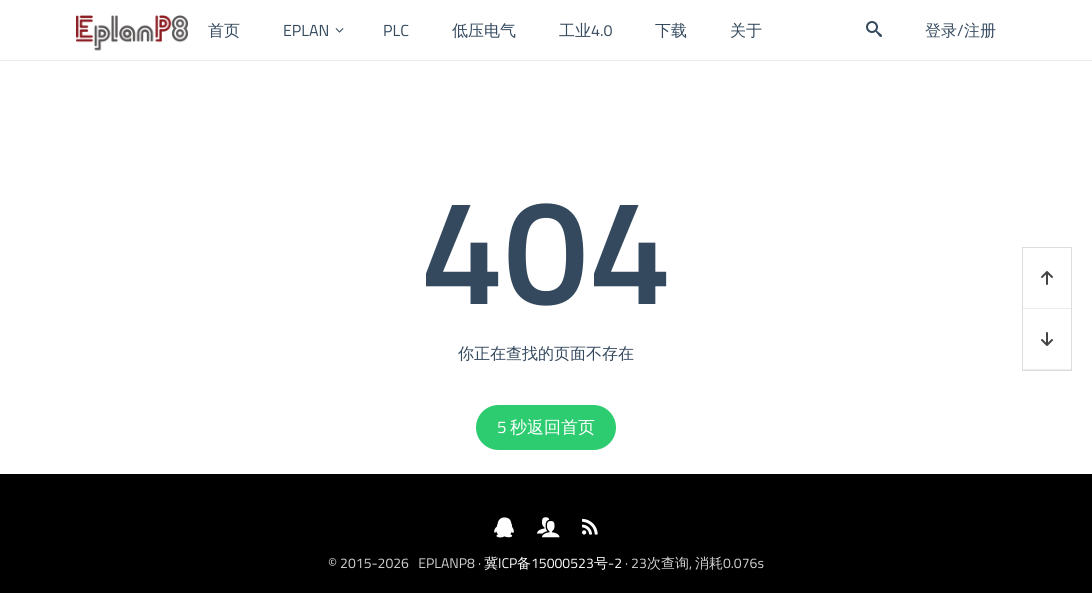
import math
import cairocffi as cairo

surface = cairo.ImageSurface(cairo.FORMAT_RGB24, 1092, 614)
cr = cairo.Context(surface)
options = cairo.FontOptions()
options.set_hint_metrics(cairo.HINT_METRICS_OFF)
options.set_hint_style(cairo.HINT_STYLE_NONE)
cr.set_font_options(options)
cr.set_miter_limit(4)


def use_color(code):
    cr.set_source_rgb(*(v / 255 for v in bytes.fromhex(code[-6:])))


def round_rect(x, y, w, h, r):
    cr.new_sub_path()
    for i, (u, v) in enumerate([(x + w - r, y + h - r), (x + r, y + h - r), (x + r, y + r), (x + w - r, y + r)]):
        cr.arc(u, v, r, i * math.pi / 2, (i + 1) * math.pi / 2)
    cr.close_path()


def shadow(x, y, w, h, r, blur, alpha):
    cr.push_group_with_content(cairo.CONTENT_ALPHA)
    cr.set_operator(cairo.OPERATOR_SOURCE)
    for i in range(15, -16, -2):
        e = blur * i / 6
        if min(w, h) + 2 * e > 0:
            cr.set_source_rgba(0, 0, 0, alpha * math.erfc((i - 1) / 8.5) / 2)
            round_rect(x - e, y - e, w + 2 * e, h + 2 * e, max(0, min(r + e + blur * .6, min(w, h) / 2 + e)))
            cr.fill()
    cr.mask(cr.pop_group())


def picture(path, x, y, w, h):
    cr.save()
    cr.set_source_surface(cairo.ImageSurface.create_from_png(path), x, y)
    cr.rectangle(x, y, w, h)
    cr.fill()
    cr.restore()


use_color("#ffffff")
cr.paint()
cr.save()
cr.rectangle(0, 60, 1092, 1)
cr.clip()
use_color("#000000")
shadow(0, 1, 1092, 60, 0, 0.5, 0.1)
cr.restore()
picture("img1.png", 76, 15, 112, 36)
cr.select_font_face("WenQuanYi Zen Hei Medium")
cr.set_font_size(16)
use_color("#34495e")
cr.move_to(208, 36)
cr.show_text("首页")
cr.select_font_face("Titillium Web")
cr.move_to(283, 36)
cr.show_text("EPLAN")
picture("img2.png", 335, 28, 9, 5)
cr.move_to(383, 36)
cr.show_text("PLC")
cr.select_font_face("WenQuanYi Zen Hei Medium")
cr.move_to(452, 36)
cr.show_text("低压电气")
cr.move_to(559, 36)
cr.show_text("工业")
cr.select_font_face("Titillium Web")
cr.move_to(591, 36)
cr.show_text("4.0")
cr.select_font_face("WenQuanYi Zen Hei Medium")
cr.move_to(655, 36)
cr.show_text("下载")
cr.move_to(730, 36)
cr.show_text("关于")
picture("img3.png", 866, 21, 16, 16)
cr.move_to(925, 36)
cr.show_text("登录")
cr.select_font_face("Titillium Web")
cr.move_to(957, 36)
cr.show_text("/")
cr.select_font_face("WenQuanYi Zen Hei Medium")
cr.move_to(964, 36)
cr.show_text("注册")
cr.select_font_face("Titillium Web SemiBold")
cr.set_font_size(150)
cr.move_to(420, 304)
cr.show_text("404")
cr.select_font_face("WenQuanYi Zen Hei Medium")
cr.set_font_size(16)
cr.move_to(458, 359)
cr.show_text("你正在查找的页面不存在")
use_color("#2ecc71")
round_rect(476, 405, 140, 45, 22.5)
cr.fill()
cr.select_font_face("Titillium Web")
cr.set_font_size(17)
use_color("#ffffff")
cr.move_to(497, 433)
cr.show_text("5")
cr.select_font_face("WenQuanYi Zen Hei Medium")
cr.move_to(510, 433)
cr.show_text("秒返回首页")
cr.rectangle(1022.5, 247.5, 49, 123)
use_color("#dddddd")
cr.set_line_width(1)
cr.stroke()
use_color("#ececec")
cr.rectangle(1023, 308, 48, 1)
cr.fill()
picture("img4.png", 1041, 271, 12, 14)
cr.rectangle(1023, 369, 48, 1)
cr.fill()
picture("img5.png", 1041, 332, 12, 14)
use_color("#000000")
cr.rectangle(0, 474, 1092, 119)
cr.fill()
picture("img6.png", 494, 517, 20, 21)
picture("img7.png", 537, 517, 23, 21)
picture("img8.png", 582, 518, 16, 17)
cr.select_font_face("Titillium Web")
cr.set_font_size(14)
use_color("#d2d2d2")
cr.move_to(328, 568)
cr.show_text("© 2015-2026   EPLANP8 ·")
cr.select_font_face("WenQuanYi Zen Hei Medium")
use_color("#ffffff")
cr.move_to(484, 568)
cr.show_text("冀")
cr.select_font_face("Titillium Web")
cr.move_to(498, 568)
cr.show_text("ICP")
cr.select_font_face("WenQuanYi Zen Hei Medium")
cr.move_to(517, 568)
cr.show_text("备")
cr.select_font_face("Titillium Web")
cr.move_to(531, 568)
cr.show_text("15000523")
cr.select_font_face("WenQuanYi Zen Hei Medium")
cr.move_to(594, 568)
cr.show_text("号")
cr.select_font_face("Titillium Web")
cr.move_to(608, 568)
cr.show_text("-2")
use_color("#d2d2d2")
cr.move_to(625, 568)
cr.show_text("· 23")
cr.select_font_face("WenQuanYi Zen Hei Medium")
cr.move_to(647, 568)
cr.show_text("次查询")
cr.select_font_face("Titillium Web")
cr.move_to(689, 568)
cr.show_text(",")
cr.select_font_face("WenQuanYi Zen Hei Medium")
cr.move_to(695, 568)
cr.show_text("消耗")
cr.select_font_face("Titillium Web")
cr.move_to(723, 568)
cr.show_text("0.076s")
surface.write_to_png("result.png")
